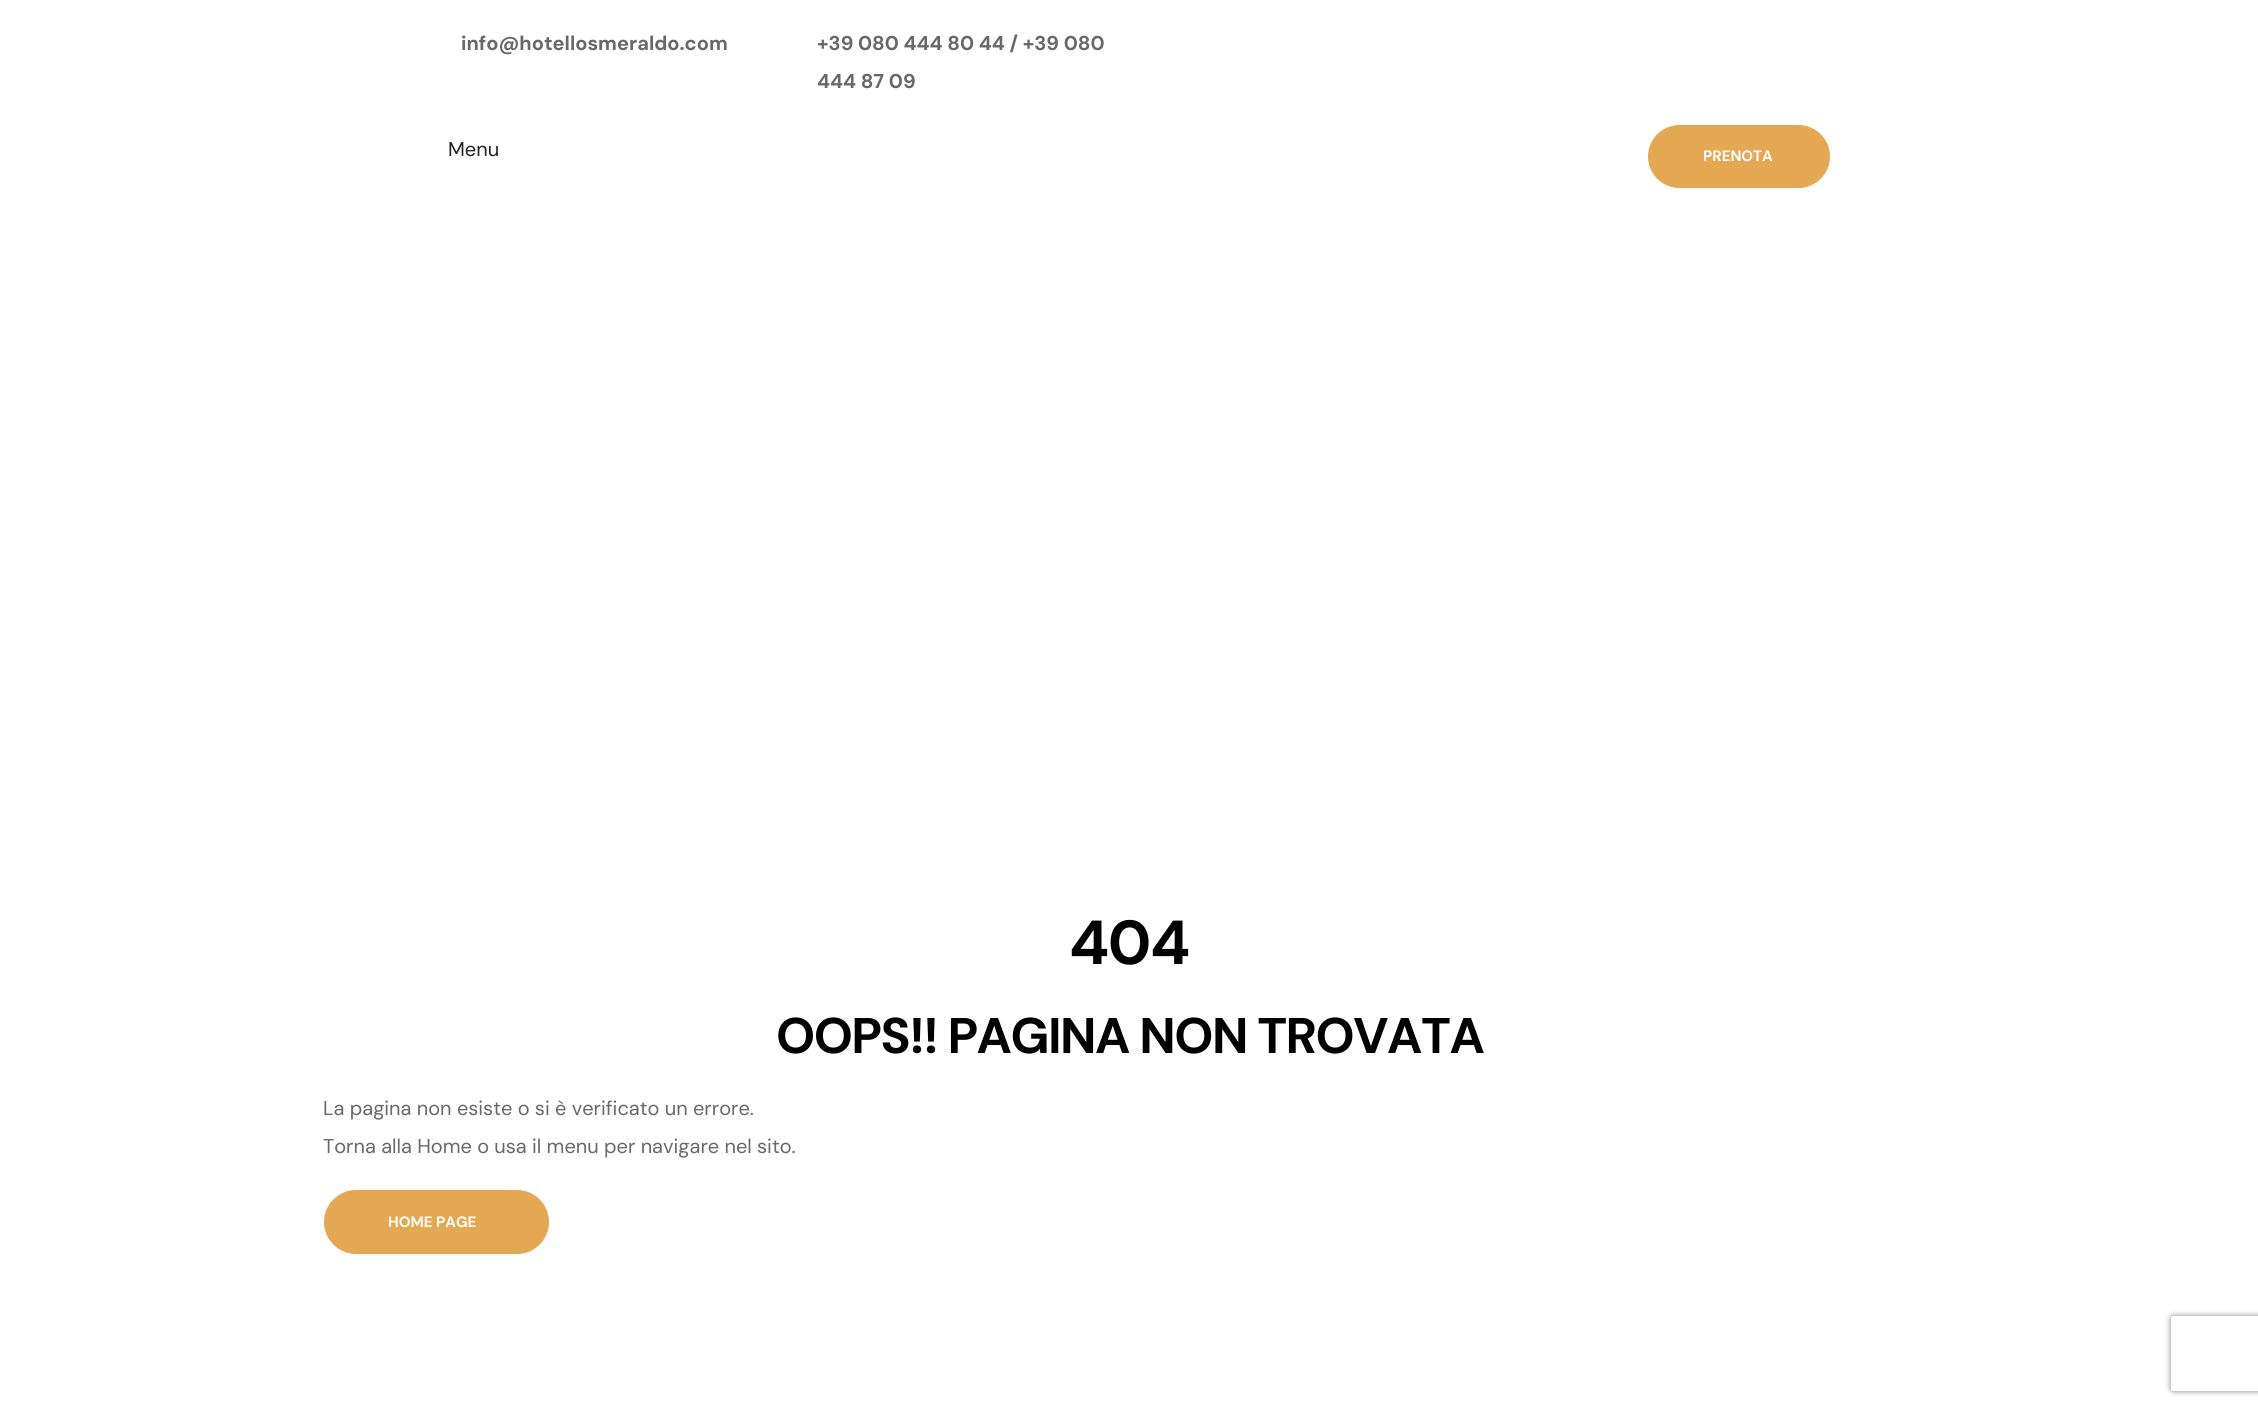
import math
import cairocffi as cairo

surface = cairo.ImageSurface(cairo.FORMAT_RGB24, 2258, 1408)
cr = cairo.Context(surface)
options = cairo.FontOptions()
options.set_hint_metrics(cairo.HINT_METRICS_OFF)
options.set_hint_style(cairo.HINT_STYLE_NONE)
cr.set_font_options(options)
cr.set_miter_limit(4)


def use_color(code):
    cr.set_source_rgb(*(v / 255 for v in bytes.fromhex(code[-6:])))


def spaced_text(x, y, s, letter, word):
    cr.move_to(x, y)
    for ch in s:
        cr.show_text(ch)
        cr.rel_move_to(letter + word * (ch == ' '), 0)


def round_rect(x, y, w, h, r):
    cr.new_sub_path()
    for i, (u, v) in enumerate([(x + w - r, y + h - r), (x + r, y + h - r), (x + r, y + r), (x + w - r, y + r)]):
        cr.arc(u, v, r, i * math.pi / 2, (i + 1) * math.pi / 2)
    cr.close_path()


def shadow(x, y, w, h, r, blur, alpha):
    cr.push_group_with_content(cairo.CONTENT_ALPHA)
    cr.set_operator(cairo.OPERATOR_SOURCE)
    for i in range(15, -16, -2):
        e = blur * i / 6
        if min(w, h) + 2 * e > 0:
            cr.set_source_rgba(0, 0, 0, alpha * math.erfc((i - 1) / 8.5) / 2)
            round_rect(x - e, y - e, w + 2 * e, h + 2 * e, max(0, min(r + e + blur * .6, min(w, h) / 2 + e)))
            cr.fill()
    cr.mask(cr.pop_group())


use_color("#ffffff")
cr.paint()
cr.select_font_face("DM Sans", cairo.FONT_SLANT_NORMAL, cairo.FONT_WEIGHT_BOLD)
cr.set_font_size(20)
use_color("#686868")
cr.move_to(461, 50)
cr.show_text("info@hotellosmeraldo.com")
cr.move_to(817, 50)
cr.show_text("+39 080 444 80 44 / +39 080")
cr.move_to(817, 88)
cr.show_text("444 87 09")
cr.select_font_face("DM Sans")
use_color("#222222")
cr.move_to(448, 156)
cr.show_text("Menu")
use_color("#e4a853")
round_rect(1648.5, 125.5, 181, 62, 31)
cr.fill_preserve()
cr.set_line_width(1)
cr.stroke()
cr.select_font_face("DM Sans", cairo.FONT_SLANT_NORMAL, cairo.FONT_WEIGHT_BOLD)
cr.set_font_size(15)
use_color("#ffffff")
cr.move_to(1703, 161)
cr.show_text("PRENOTA")
cr.set_font_size(62)
use_color("#000000")
spaced_text(1069, 964, "404", -1.5, 0)
cr.set_font_size(50)
spaced_text(776, 1053, "OOPS!! PAGINA NON TROVATA", -1.5, 0)
cr.select_font_face("DM Sans")
cr.set_font_size(20)
use_color("#686868")
cr.move_to(323, 1115)
cr.show_text("La pagina non esiste o si è verificato un errore.")
cr.move_to(323, 1153)
cr.show_text("Torna alla Home o usa il menu per navigare nel sito.")
use_color("#e4a853")
round_rect(324.5, 1190.5, 224, 63, 31.5)
cr.fill_preserve()
cr.stroke()
cr.select_font_face("DM Sans", cairo.FONT_SLANT_NORMAL, cairo.FONT_WEIGHT_BOLD)
cr.set_font_size(15)
use_color("#ffffff")
cr.move_to(388, 1227)
cr.show_text("HOME PAGE")
cr.save()
cr.set_fill_rule(cairo.FILL_RULE_EVEN_ODD)
cr.new_path()
cr.move_to(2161, 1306)
cr.line_to(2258, 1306)
cr.line_to(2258, 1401)
cr.line_to(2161, 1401)
cr.close_path()
cr.move_to(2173.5, 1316)
cr.line_to(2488.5, 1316)
cr.curve_to(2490, 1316, 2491, 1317, 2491, 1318.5)
cr.line_to(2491, 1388.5)
cr.curve_to(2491, 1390, 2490, 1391, 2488.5, 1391)
cr.line_to(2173.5, 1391)
cr.curve_to(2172, 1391, 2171, 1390, 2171, 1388.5)
cr.line_to(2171, 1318.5)
cr.curve_to(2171, 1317, 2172, 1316, 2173.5, 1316)
cr.close_path()
cr.clip()
use_color("#808080")
shadow(2171, 1316, 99, 75, 2.5, 3, 1)
cr.restore()
surface.write_to_png("result.png")
